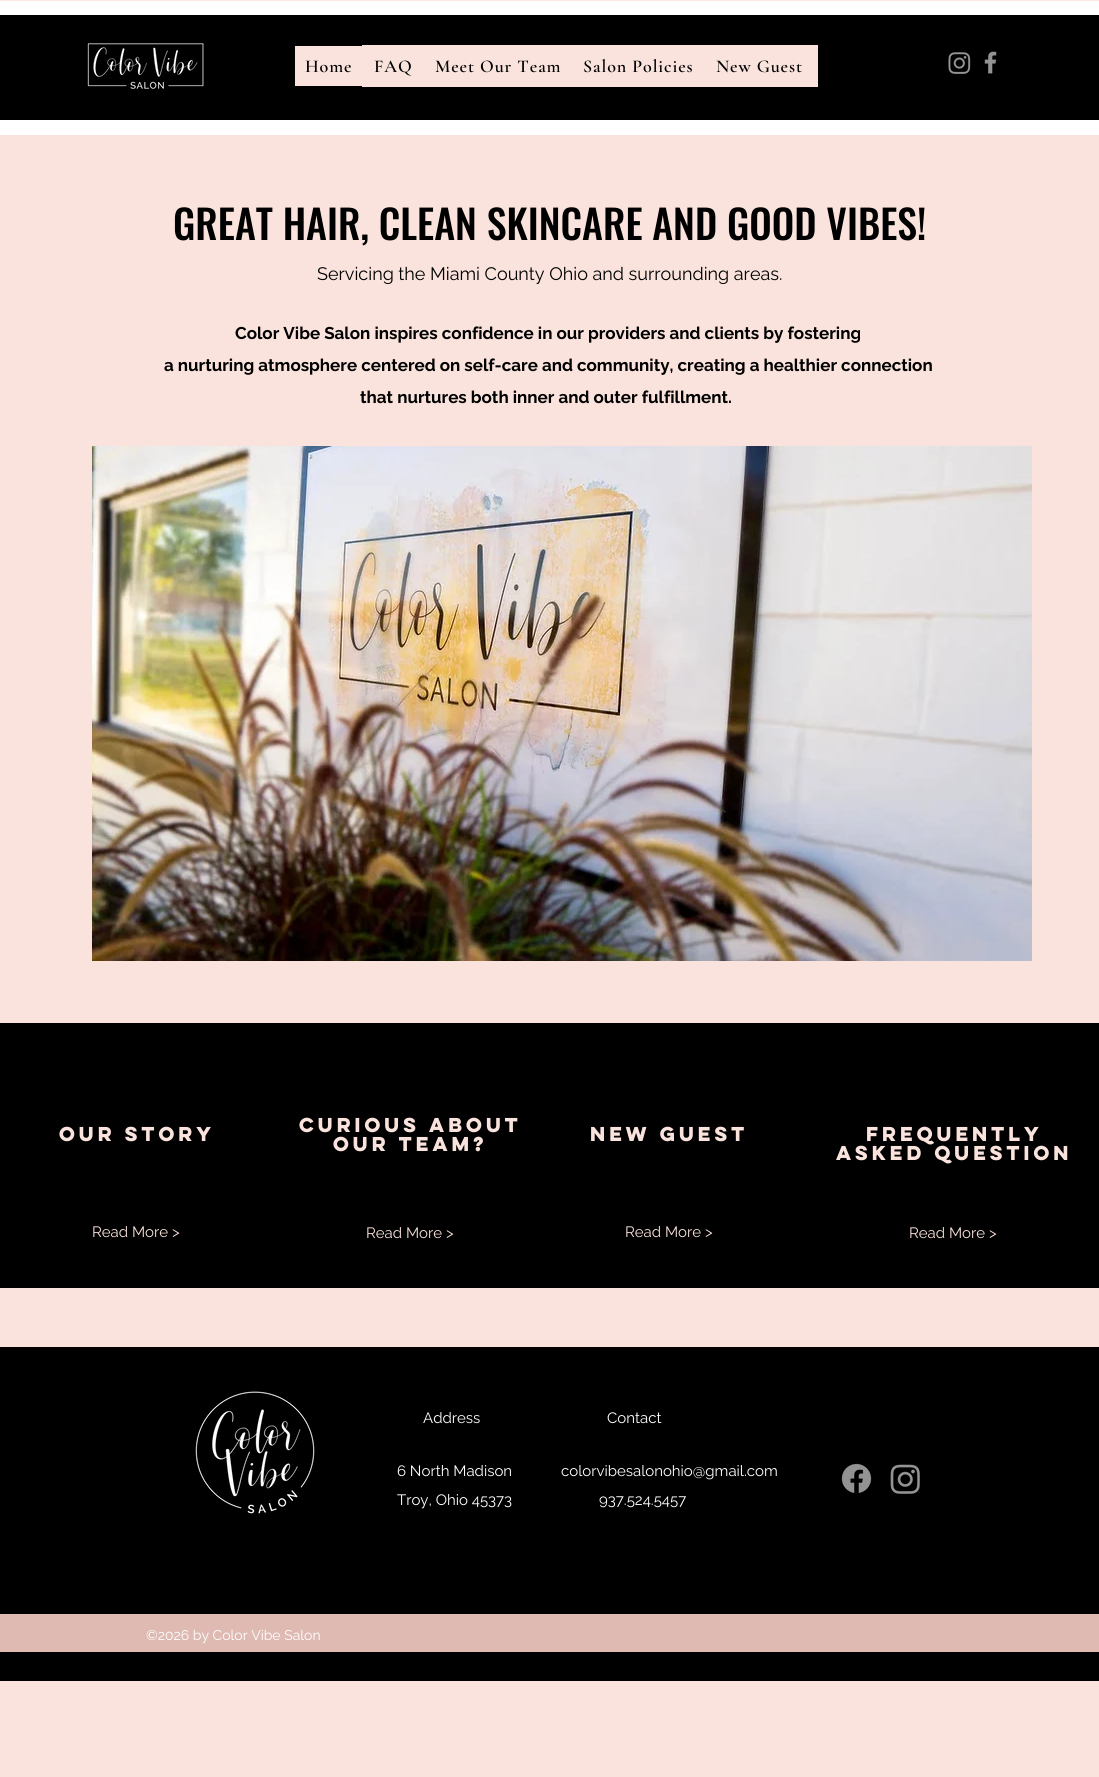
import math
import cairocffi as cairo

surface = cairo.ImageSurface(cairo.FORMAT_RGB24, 1099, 1777)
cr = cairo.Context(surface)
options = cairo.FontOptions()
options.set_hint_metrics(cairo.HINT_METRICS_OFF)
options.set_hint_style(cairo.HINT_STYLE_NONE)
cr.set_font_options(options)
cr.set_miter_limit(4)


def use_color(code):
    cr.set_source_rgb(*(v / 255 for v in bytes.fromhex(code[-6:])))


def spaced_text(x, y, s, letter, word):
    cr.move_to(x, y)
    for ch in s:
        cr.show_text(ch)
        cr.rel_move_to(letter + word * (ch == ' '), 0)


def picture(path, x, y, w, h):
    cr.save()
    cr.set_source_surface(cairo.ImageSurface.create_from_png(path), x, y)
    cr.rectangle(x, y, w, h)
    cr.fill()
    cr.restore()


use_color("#f9e3dc")
cr.paint()
use_color("#000000")
cr.rectangle(0, 15, 1099, 105)
cr.fill()
use_color("#ffffff")
cr.rectangle(0, 1, 1099, 14)
cr.fill()
cr.rectangle(0, 120, 1099, 15)
cr.fill()
use_color("#fae7e1")
cr.rectangle(0, 0, 1099, 1)
cr.fill()
picture("img1.png", 87, 43, 117, 46)
use_color("#f9e3dc")
cr.rectangle(295, 45, 523, 42)
cr.fill()
use_color("#000000")
cr.rectangle(295, 45, 67, 1)
cr.fill()
cr.rectangle(295, 86, 67, 1)
cr.fill()
cr.select_font_face("Cormorant Garamond SemiBold")
cr.set_font_size(18)
spaced_text(305, 72, "Home", 0.9, 0)
spaced_text(374, 72, "FAQ", 0.9, 0)
spaced_text(435, 72, "Meet Our Team", 0.9, 0)
spaced_text(583, 72, "Salon Policies", 0.9, 0)
spaced_text(716, 72, "New Guest", 0.9, 0)
picture("img2.png", 948, 52, 23, 22)
picture("img3.png", 984, 51, 13, 23)
cr.select_font_face("Oswald Medium")
cr.set_font_size(40)
cr.move_to(173, 240)
cr.show_text("GREAT HAIR, CLEAN SKINCARE AND GOOD VIBES!")
cr.select_font_face("Raleway")
cr.set_font_size(18)
cr.move_to(317, 280)
cr.show_text("Servicing the Miami County Ohio and surrounding areas.")
cr.select_font_face("Raleway", cairo.FONT_SLANT_NORMAL, cairo.FONT_WEIGHT_BOLD)
cr.set_font_size(17)
cr.move_to(235, 339)
cr.show_text("Color Vibe Salon inspires confidence in our providers and clients by fostering")
cr.move_to(164, 371)
cr.show_text("a nurturing atmosphere centered on self-care and community, creating a healthier connection")
cr.move_to(360, 403)
cr.show_text("that nurtures both inner and outer fulfillment.")
picture("img4.png", 92, 446, 940, 515)
cr.rectangle(0, 1023, 1099, 265)
cr.fill()
cr.select_font_face("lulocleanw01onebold", cairo.FONT_SLANT_NORMAL, cairo.FONT_WEIGHT_BOLD)
cr.set_font_size(18)
use_color("#f9e3dc")
cr.move_to(59, 1141)
cr.show_text("OUR STORY")
cr.select_font_face("Raleway")
cr.set_font_size(15)
cr.move_to(92, 1237)
cr.show_text("Read More >")
cr.select_font_face("lulocleanw01onebold", cairo.FONT_SLANT_NORMAL, cairo.FONT_WEIGHT_BOLD)
cr.set_font_size(18)
cr.move_to(299, 1132)
cr.show_text("CURIOUS ABOUT")
cr.move_to(333, 1151)
cr.show_text("OUR TEAM?")
cr.select_font_face("Raleway")
cr.set_font_size(15)
cr.move_to(366, 1238)
cr.show_text("Read More >")
cr.select_font_face("lulocleanw01onebold", cairo.FONT_SLANT_NORMAL, cairo.FONT_WEIGHT_BOLD)
cr.set_font_size(18)
cr.move_to(590, 1141)
cr.show_text("NEW GUEST")
cr.select_font_face("Raleway")
cr.set_font_size(15)
cr.move_to(625, 1237)
cr.show_text("Read More >")
cr.select_font_face("lulocleanw01onebold", cairo.FONT_SLANT_NORMAL, cairo.FONT_WEIGHT_BOLD)
cr.set_font_size(18)
cr.move_to(866, 1141)
cr.show_text("FREQUENTLY")
cr.move_to(836, 1160)
cr.show_text("ASKED QUESTION")
cr.select_font_face("Raleway")
cr.set_font_size(15)
cr.move_to(909, 1238)
cr.show_text("Read More >")
use_color("#000000")
cr.rectangle(0, 1347, 1099, 334)
cr.fill()
picture("img5.png", 195, 1391, 120, 123)
use_color("#ffffff")
cr.move_to(423, 1423)
cr.show_text("Address")
cr.move_to(607, 1423)
cr.show_text("Contact")
cr.move_to(397, 1476)
cr.show_text("6 North Madison")
cr.move_to(397, 1505)
cr.show_text("Troy, Ohio 45373")
cr.move_to(561, 1476)
cr.show_text("colorvibesalonohio@gmail.com")
picture("img6.png", 841, 1463, 31, 30)
picture("img7.png", 890, 1464, 30, 30)
cr.move_to(599, 1505)
cr.show_text("937.524.5457")
use_color("#debab3")
cr.rectangle(0, 1614, 1099, 38)
cr.fill()
cr.set_font_size(14)
use_color("#ffffff")
cr.move_to(146, 1640)
cr.show_text("©2026 by Color Vibe Salon")
surface.write_to_png("result.png")
